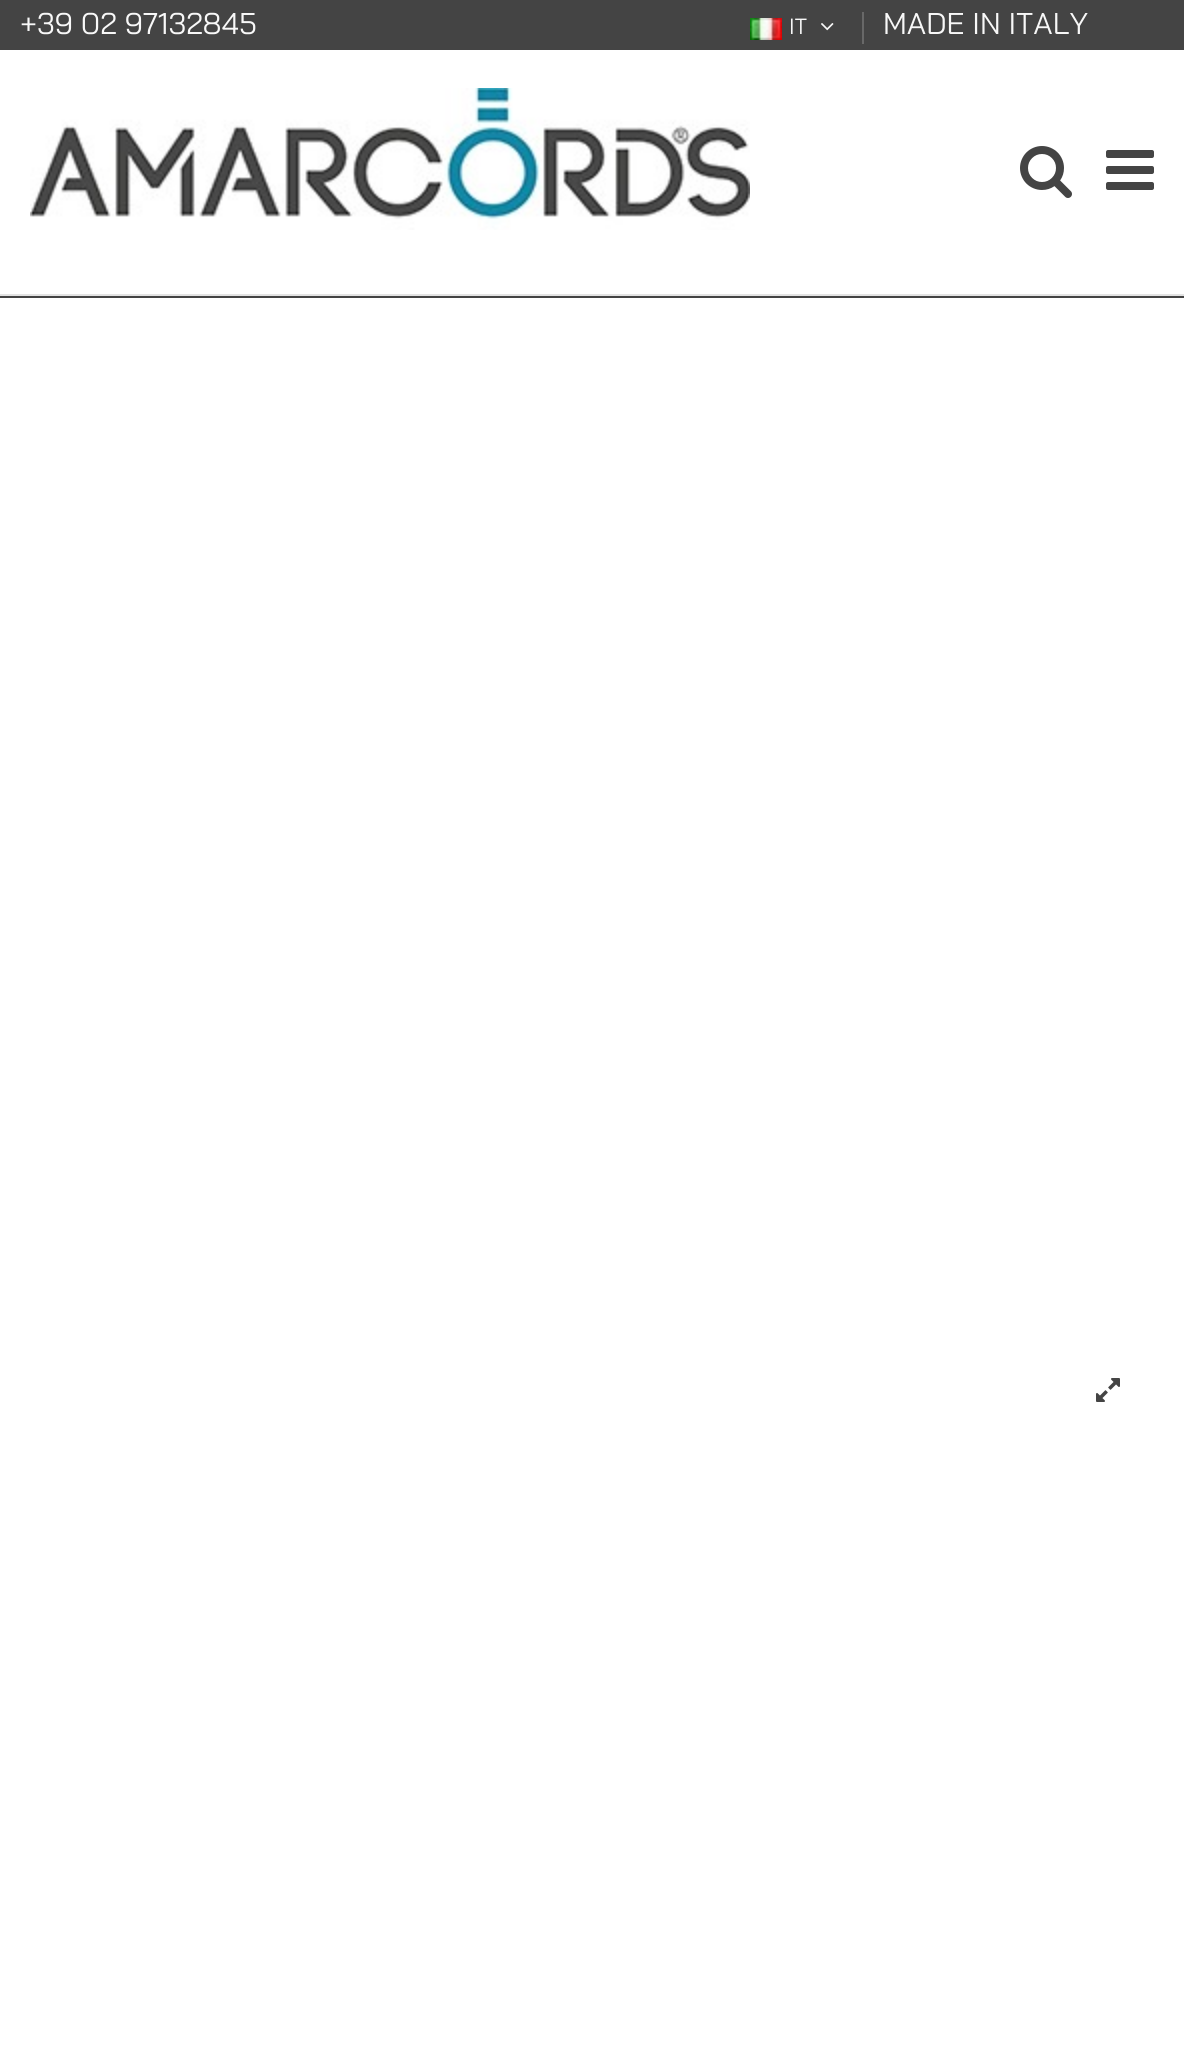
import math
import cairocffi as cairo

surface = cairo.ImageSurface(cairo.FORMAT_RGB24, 1184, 2063)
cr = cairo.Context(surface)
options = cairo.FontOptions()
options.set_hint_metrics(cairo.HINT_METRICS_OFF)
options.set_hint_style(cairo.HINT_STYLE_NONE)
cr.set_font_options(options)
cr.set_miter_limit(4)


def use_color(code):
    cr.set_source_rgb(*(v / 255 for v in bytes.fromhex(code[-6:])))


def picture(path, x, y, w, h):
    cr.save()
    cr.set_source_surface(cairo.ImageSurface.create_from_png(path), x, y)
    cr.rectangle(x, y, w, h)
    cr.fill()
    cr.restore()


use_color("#ffffff")
cr.paint()
use_color("#444444")
cr.rectangle(0, 296, 1184, 2)
cr.fill()
cr.rectangle(0, 0, 1184, 50)
cr.fill()
cr.select_font_face("Bai Jamjuree")
cr.set_font_size(30)
use_color("#f8f8f8")
cr.move_to(20, 34)
cr.show_text("+39 02 97132845")
picture("img1.png", 750, 18, 32, 22)
cr.set_font_size(22)
cr.move_to(789, 34)
cr.show_text("IT")
picture("img2.png", 821, 23, 13, 8)
use_color("#686868")
cr.rectangle(862, 12, 2, 32)
cr.fill()
cr.set_font_size(30)
use_color("#f8f8f8")
cr.move_to(883, 34)
cr.show_text("MADE IN ITALY")
use_color("#e3e3e3")
cr.rectangle(0, 294, 1184, 2)
cr.fill()
picture("img3.png", 30, 88, 720, 142)
picture("img4.png", 1020, 146, 52, 52)
picture("img5.png", 1106, 150, 48, 40)
picture("img6.png", 1096, 1378, 24, 24)
surface.write_to_png("result.png")
